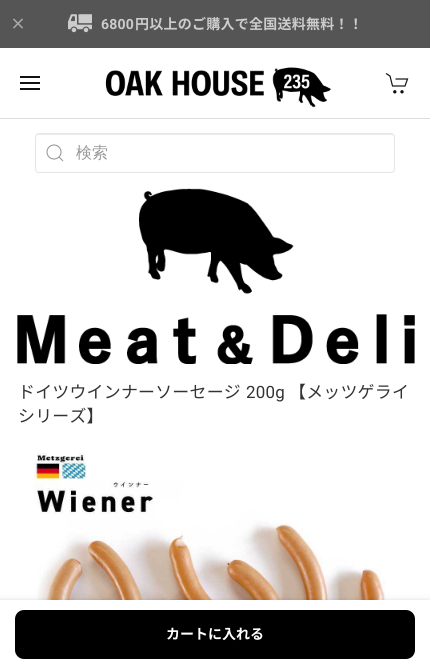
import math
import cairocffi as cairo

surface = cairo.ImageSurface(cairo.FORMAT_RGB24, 430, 669)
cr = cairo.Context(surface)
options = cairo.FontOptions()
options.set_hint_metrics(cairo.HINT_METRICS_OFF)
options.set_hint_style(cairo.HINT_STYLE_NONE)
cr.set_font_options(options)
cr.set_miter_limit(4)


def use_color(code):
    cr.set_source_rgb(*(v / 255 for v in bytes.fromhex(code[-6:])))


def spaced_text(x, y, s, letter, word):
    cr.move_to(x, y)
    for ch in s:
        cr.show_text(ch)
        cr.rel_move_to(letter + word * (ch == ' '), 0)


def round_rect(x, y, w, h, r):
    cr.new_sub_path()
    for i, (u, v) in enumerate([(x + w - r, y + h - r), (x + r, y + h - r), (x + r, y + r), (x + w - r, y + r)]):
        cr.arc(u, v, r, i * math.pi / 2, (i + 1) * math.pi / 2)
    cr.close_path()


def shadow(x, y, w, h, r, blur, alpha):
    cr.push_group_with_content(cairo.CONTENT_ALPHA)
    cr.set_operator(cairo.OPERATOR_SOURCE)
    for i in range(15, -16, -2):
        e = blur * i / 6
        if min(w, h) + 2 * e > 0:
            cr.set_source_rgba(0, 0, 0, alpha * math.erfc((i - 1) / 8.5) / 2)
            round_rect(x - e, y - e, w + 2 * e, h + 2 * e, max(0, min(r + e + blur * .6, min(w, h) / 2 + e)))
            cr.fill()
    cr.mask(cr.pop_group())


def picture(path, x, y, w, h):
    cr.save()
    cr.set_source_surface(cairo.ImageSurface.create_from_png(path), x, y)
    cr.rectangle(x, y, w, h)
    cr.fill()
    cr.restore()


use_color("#ffffff")
cr.paint()
use_color("#dddddd")
cr.rectangle(0, 118, 430, 1)
cr.fill()
use_color("#555555")
cr.rectangle(0, 0, 430, 48)
cr.fill()
picture("img1.png", 13, 18, 10, 11)
picture("img2.png", 68, 14, 24, 19)
cr.select_font_face("Roboto", cairo.FONT_SLANT_NORMAL, cairo.FONT_WEIGHT_BOLD)
cr.set_font_size(14)
use_color("#cccccc")
spaced_text(101, 29, "6800", 0.25, 0)
cr.select_font_face("Noto Sans JP", cairo.FONT_SLANT_NORMAL, cairo.FONT_WEIGHT_BOLD)
spaced_text(135, 29, "円以上のご購入で全国送料無料！！", 0.25, 0)
use_color("#111111")
cr.rectangle(20, 82, 20, 2)
cr.fill()
cr.rectangle(20, 76, 20, 2)
cr.fill()
cr.rectangle(20, 88, 20, 2)
cr.fill()
picture("img3.png", 105, 67, 226, 41)
cr.new_path()
cr.move_to(386, 73.5)
cr.line_to(390, 76)
cr.line_to(392.5, 86)
cr.line_to(405, 86)
cr.line_to(407.5, 79)
cr.line_to(395.5, 79)
cr.set_line_width(1.2)
cr.stroke()
cr.arc(394.8, 91.8, 1.7, 0, 2 * math.pi)
cr.fill()
cr.arc(402, 91.8, 1.7, 0, 2 * math.pi)
cr.fill()
use_color("#ececec")
cr.new_path()
cr.move_to(39, 135)
cr.line_to(391, 135)
cr.curve_to(393, 135, 394, 136, 394, 138)
cr.curve_to(394, 136, 393, 134, 391, 134)
cr.line_to(39, 134)
cr.line_to(37, 135)
cr.line_to(36, 138)
cr.curve_to(36, 136, 37, 135, 39, 135)
cr.close_path()
cr.fill()
round_rect(35.5, 133.5, 359, 39, 3.5)
use_color("#e5e5e5")
cr.set_line_width(1)
cr.stroke()
cr.arc(54, 152, 7, 0, 2 * math.pi)
use_color("#999999")
cr.set_line_width(1.1)
cr.stroke()
cr.new_path()
cr.move_to(59, 157)
cr.line_to(63, 161)
cr.close_path()
cr.stroke()
cr.select_font_face("WenQuanYi Zen Hei Medium")
cr.set_font_size(16)
cr.move_to(76, 158)
cr.show_text("検索")
picture("img4.png", 17, 188, 398, 176)
cr.select_font_face("Noto Sans JP")
cr.set_font_size(16.9)
use_color("#333333")
spaced_text(18, 398, "ドイツウインナーソーセージ", 0.25, 0)
cr.select_font_face("Roboto")
spaced_text(246, 398, "200g", 0.25, 0)
cr.select_font_face("Noto Sans JP")
spaced_text(289, 398, "【メッツゲライ", 0.25, 0)
spaced_text(18, 422, "シリーズ】", 0.25, 0)
picture("img5.png", 34, 453, 352, 147)
use_color("#000000")
shadow(0, 602, 430, 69, 0, 5, 0.12)
shadow(0, 602, 430, 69, 0, 2.5, 0.16)
use_color("#ffffff")
cr.rectangle(0, 600, 430, 69)
cr.fill()
use_color("#000000")
round_rect(15, 610, 400, 49, 9)
cr.fill()
cr.select_font_face("Noto Sans JP", cairo.FONT_SLANT_NORMAL, cairo.FONT_WEIGHT_BOLD)
cr.set_font_size(14)
use_color("#ffffff")
cr.move_to(166, 639)
cr.show_text("カートに入れる")
surface.write_to_png("result.png")
